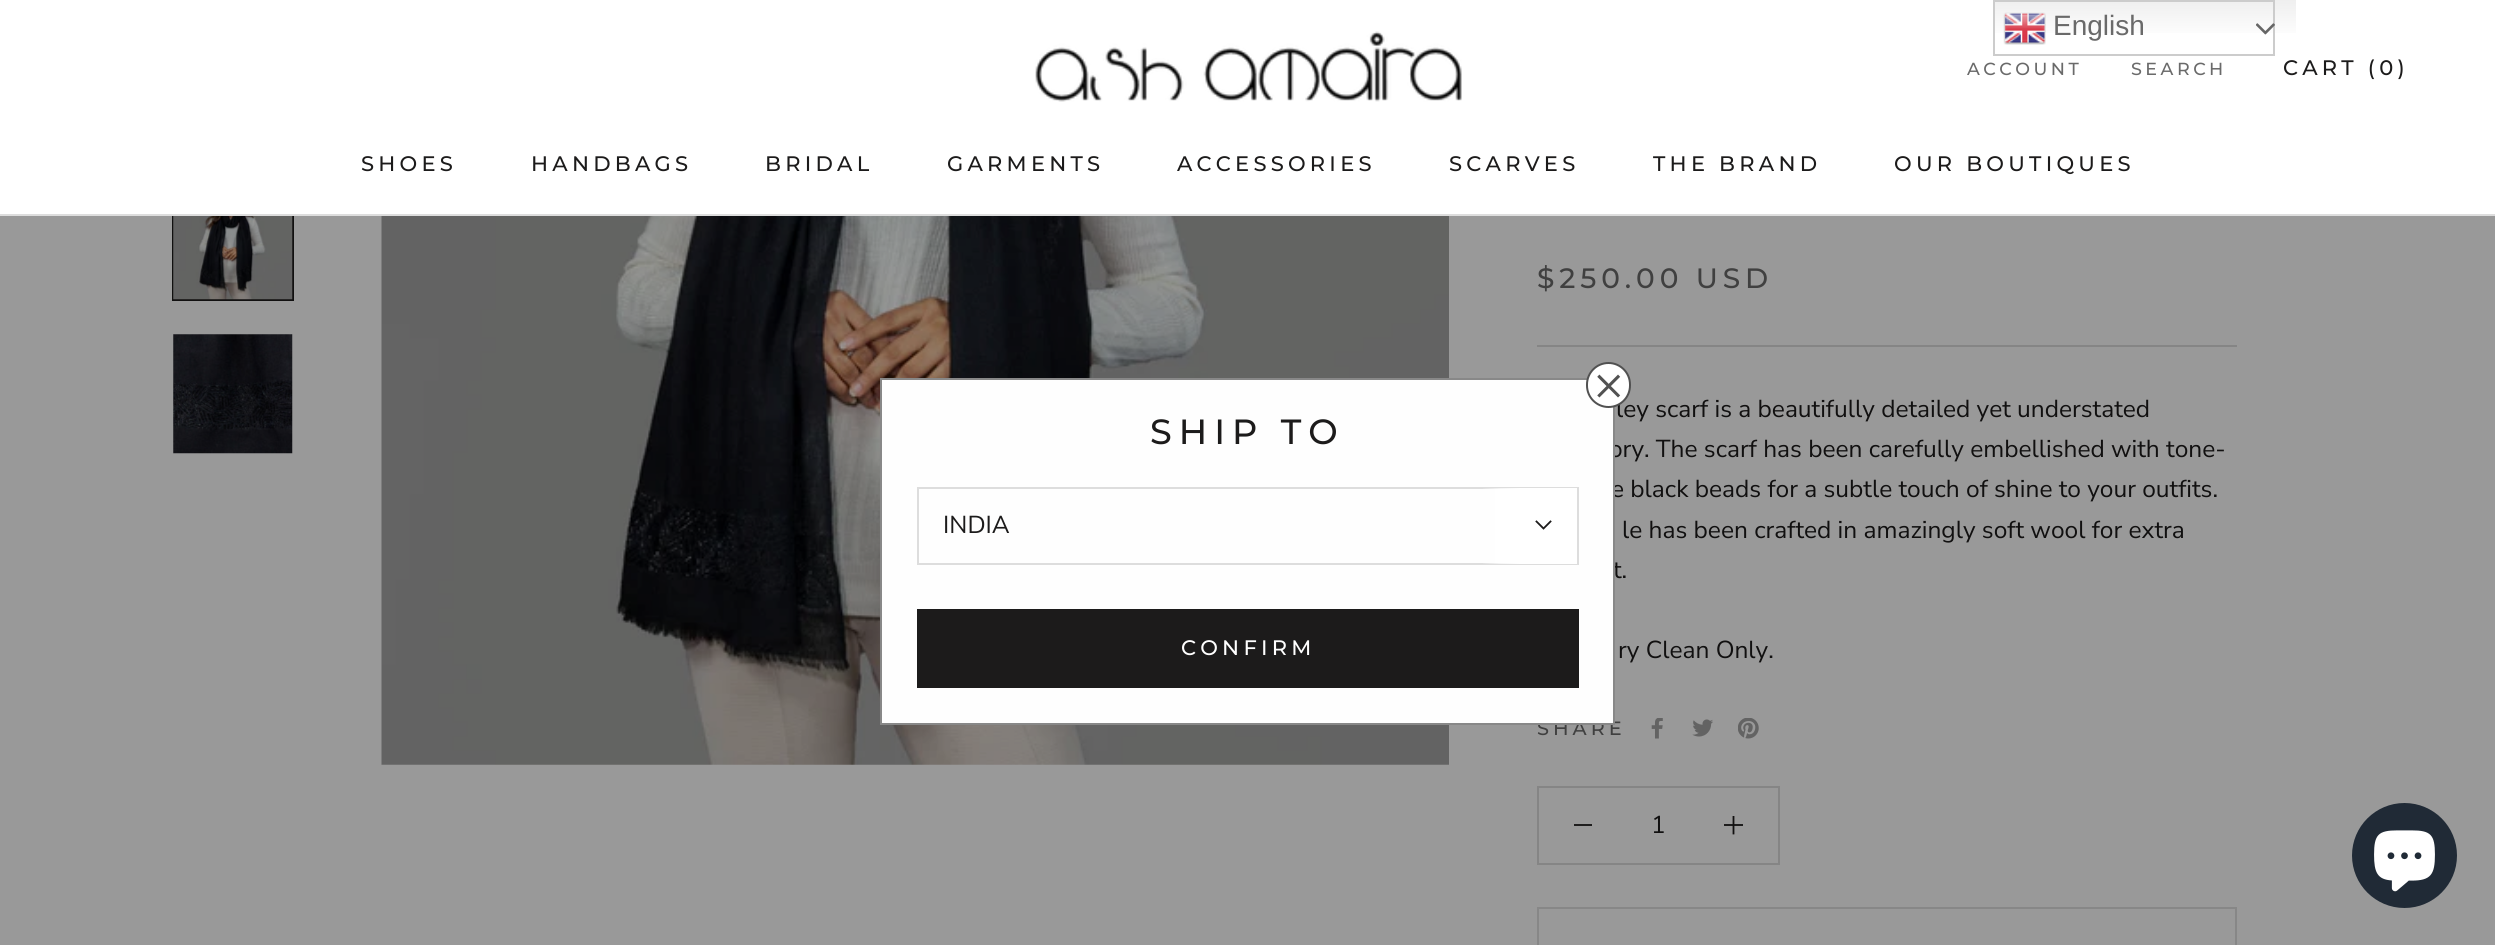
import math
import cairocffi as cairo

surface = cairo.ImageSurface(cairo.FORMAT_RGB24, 2495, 945)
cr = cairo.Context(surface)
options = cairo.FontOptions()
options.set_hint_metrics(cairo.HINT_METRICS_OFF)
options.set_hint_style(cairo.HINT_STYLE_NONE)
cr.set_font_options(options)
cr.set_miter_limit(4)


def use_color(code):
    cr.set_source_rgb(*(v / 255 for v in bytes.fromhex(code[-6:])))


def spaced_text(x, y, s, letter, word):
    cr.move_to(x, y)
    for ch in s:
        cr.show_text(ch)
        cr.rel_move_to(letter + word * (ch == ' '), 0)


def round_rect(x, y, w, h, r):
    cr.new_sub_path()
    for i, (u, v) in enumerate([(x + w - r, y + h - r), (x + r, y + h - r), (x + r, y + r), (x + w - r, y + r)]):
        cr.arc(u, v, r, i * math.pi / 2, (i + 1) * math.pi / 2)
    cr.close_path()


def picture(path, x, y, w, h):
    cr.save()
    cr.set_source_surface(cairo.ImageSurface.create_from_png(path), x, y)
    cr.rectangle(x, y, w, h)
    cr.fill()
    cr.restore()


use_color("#999999")
cr.paint()
cr.rectangle(173, 180, 120, 120)
use_color("#111010")
cr.stroke()
use_color("#ffffff")
cr.rectangle(0, 0, 2495, 214)
cr.fill()
gradient = cairo.LinearGradient(2145, 0, 2145, 56)
gradient.add_color_stop_rgba(0, 0.937, 0.937, 0.937, 1)
gradient.add_color_stop_rgba(0.7, 1, 1, 1, 1)
cr.set_source(gradient)
cr.rectangle(1995, 0, 301, 33)
cr.fill()
cr.rectangle(1994, 1, 280, 54)
use_color("#cccccc")
cr.stroke()
picture("img1.png", 2003, 12, 43, 33)
cr.select_font_face("Liberation Sans")
cr.set_font_size(28)
use_color("#6a6a6a")
cr.move_to(2053, 35)
cr.show_text("English")
picture("img2.png", 2256, 23, 19, 12)
use_color("#dddddd")
cr.rectangle(0, 214, 2495, 2)
cr.fill()
picture("img3.png", 1035, 31, 427, 71)
cr.select_font_face("Montserrat Medium")
cr.set_font_size(17.5)
use_color("#6a6a6a")
spaced_text(1967, 75, "ACCOUNT", 3.5, 0)
spaced_text(2131, 75, "SEARCH", 3.5, 0)
cr.set_font_size(21)
use_color("#1c1b1b")
spaced_text(2283, 75, "CART (0)", 4.25, 0)
spaced_text(361, 171, "SHOES", 4.25, 0)
spaced_text(531, 171, "HANDBAGS", 4.25, 0)
spaced_text(765, 171, "BRIDAL", 4.25, 0)
spaced_text(947, 171, "GARMENTS", 4.25, 0)
spaced_text(1177, 171, "ACCESSORIES", 4.25, 0)
spaced_text(1449, 171, "SCARVES", 4.25, 0)
spaced_text(1653, 171, "THE BRAND", 4.25, 0)
spaced_text(1894, 171, "OUR BOUTIQUES", 4.25, 0)
picture("img6.png", 381, 216, 1068, 549)
cr.select_font_face("Nunito Sans")
cr.set_font_size(24.5)
use_color("#111010")
cr.move_to(1609, 457)
cr.show_text("ory. The scarf has been carefully embellished with tone-")
cr.move_to(1611, 497)
cr.show_text("e black beads for a subtle touch of shine to your outfits.")
cr.move_to(1613, 578)
cr.show_text("t.")
cr.select_font_face("Montserrat Medium")
cr.set_font_size(19.25)
use_color("#404040")
spaced_text(1537, 735, "SHARE", 4, 0)
use_color("#fefefe")
cr.rectangle(881, 379, 733, 345)
cr.fill_preserve()
use_color("#888888")
cr.stroke()
cr.select_font_face("Nunito Sans")
cr.set_font_size(24.5)
use_color("#111010")
cr.move_to(1616, 417)
cr.show_text("ley scarf is a beautifully detailed yet understated")
use_color("#ffffff")
round_rect(1587, 363, 43, 44, 21.5)
cr.fill_preserve()
use_color("#515151")
cr.stroke()
cr.set_font_size(49)
use_color("#525252")
cr.move_to(1594, 400)
cr.show_text("×")
cr.select_font_face("Montserrat Medium")
cr.set_font_size(35)
use_color("#1c1b1b")
spaced_text(1150, 444, "SHIP TO", 7, 0)
cr.rectangle(918, 488, 660, 76)
use_color("#dddddd")
cr.stroke()
cr.select_font_face("Nunito Sans")
cr.set_font_size(24.5)
use_color("#1c1b1b")
cr.move_to(943, 533)
cr.show_text("INDIA")
gradient = cairo.LinearGradient(1481, 526, 1577, 526)
gradient.add_color_stop_rgba(0, 1, 1, 1, 0)
gradient.add_color_stop_rgba(0.2, 1, 1, 1, 0.7)
gradient.add_color_stop_rgba(0.4, 1, 1, 1, 1)
cr.set_source(gradient)
cr.rectangle(1483, 488, 94, 76)
cr.fill()
cr.new_path()
cr.move_to(1550.5, 521.5)
cr.line_to(1543.5, 528.5)
cr.line_to(1536.5, 521.5)
use_color("#1c1b1b")
cr.set_line_width(1.8)
cr.set_line_cap(cairo.LINE_CAP_SQUARE)
cr.stroke()
cr.rectangle(918, 610, 660, 77)
cr.set_line_width(2)
cr.set_line_cap(cairo.LINE_CAP_BUTT)
cr.stroke()
cr.rectangle(919, 611, 658, 75)
cr.fill()
cr.select_font_face("Montserrat Medium")
cr.set_font_size(21)
use_color("#ffffff")
spaced_text(1181, 655, "CONFIRM", 4.25, 0)
picture("img4.png", 173, 216, 120, 84)
picture("img5.png", 173, 334, 120, 120)
use_color("#858585")
cr.rectangle(1537, 345, 700, 2)
cr.fill()
cr.set_font_size(28)
use_color("#404040")
spaced_text(1537, 288, "$250.00 USD", 4.9, 0)
cr.select_font_face("Nunito Sans")
cr.set_font_size(24.5)
use_color("#111010")
cr.move_to(1622, 538)
cr.show_text("le has been crafted in amazingly soft wool for extra")
cr.move_to(1618, 658)
cr.show_text("ry Clean Only.")
picture("img7.png", 1651, 718, 12, 21)
picture("img8.png", 1692, 719, 21, 18)
picture("img9.png", 1738, 718, 21, 21)
cr.rectangle(1538, 787, 241, 77)
use_color("#858585")
cr.stroke()
use_color("#1f1e1e")
cr.rectangle(1574, 824, 18, 2)
cr.fill()
use_color("#111010")
cr.move_to(1651, 833)
cr.show_text("1")
cr.save()
cr.rectangle(1724, 816, 19, 19)
cr.clip()
cr.new_path()
cr.move_to(1733.5, 816.5)
cr.line_to(1733.5, 833.5)
cr.set_line_width(1.8)
cr.set_line_cap(cairo.LINE_CAP_SQUARE)
cr.stroke()
cr.restore()
cr.set_source_rgba(0.067, 0.063, 0.063, 0.9)
cr.rectangle(1724, 824, 19, 2)
cr.fill()
cr.rectangle(1538, 908, 698, 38)
use_color("#878787")
cr.stroke()
use_color("#202a36")
cr.arc(2404.5, 855.5, 52.5, 0, 2 * math.pi)
cr.fill()
picture("img10.png", 2374, 830, 61, 62)
surface.write_to_png("result.png")
